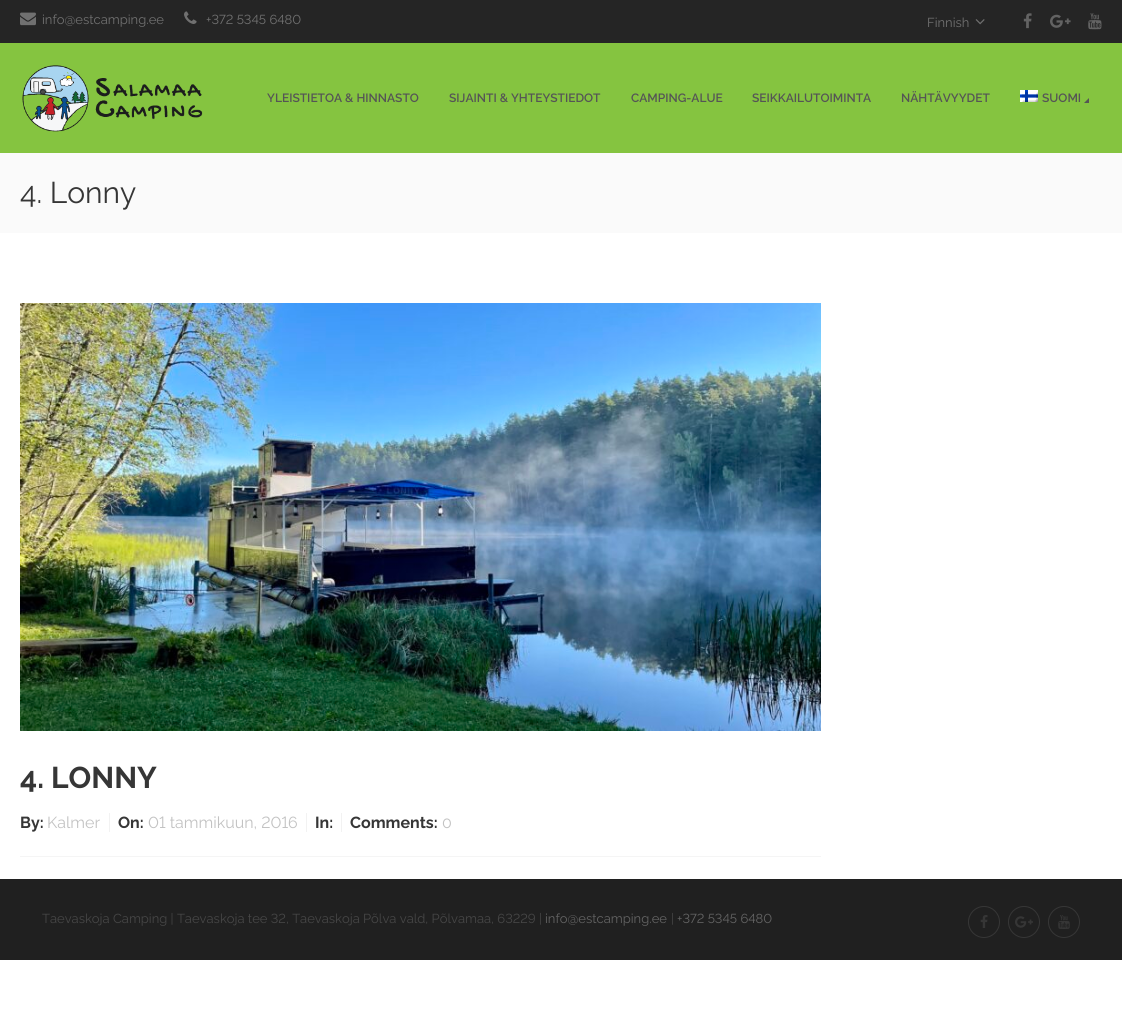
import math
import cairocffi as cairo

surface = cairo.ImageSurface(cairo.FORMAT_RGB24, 1122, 1021)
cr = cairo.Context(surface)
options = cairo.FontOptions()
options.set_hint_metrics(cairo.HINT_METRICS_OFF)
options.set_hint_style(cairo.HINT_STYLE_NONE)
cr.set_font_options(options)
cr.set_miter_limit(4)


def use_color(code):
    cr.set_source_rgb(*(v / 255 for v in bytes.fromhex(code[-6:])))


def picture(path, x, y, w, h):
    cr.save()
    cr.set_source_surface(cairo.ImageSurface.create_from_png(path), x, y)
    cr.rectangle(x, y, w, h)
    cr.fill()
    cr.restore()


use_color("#ffffff")
cr.paint()
use_color("#252525")
cr.rectangle(0, 0, 1122, 43)
cr.fill()
picture("img1.png", 20, 12, 16, 14)
cr.select_font_face("Raleway")
cr.set_font_size(13)
use_color("#707070")
cr.move_to(42, 24)
cr.show_text("info@estcamping.ee")
picture("img2.png", 184, 11, 13, 13)
cr.select_font_face("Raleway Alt")
cr.move_to(206, 24)
cr.show_text("+372 5345 6480")
cr.select_font_face("Raleway")
cr.move_to(927, 27)
cr.show_text("Finnish")
picture("img3.png", 975, 19, 10, 6)
picture("img4.png", 1023, 13, 9, 16)
picture("img5.png", 1050, 14, 21, 14)
picture("img6.png", 1088, 13, 14, 17)
use_color("#85c440")
cr.rectangle(0, 43, 1122, 110)
cr.fill()
picture("img7.png", 22, 65, 181, 67)
cr.select_font_face("Raleway SemiBold")
cr.set_font_size(12)
use_color("#555555")
cr.move_to(267, 102)
cr.show_text("YLEISTIETOA & HINNASTO")
cr.move_to(449, 102)
cr.show_text("SIJAINTI & YHTEYSTIEDOT")
cr.move_to(631, 102)
cr.show_text("CAMPING-ALUE")
cr.move_to(752, 102)
cr.show_text("SEIKKAILUTOIMINTA")
cr.move_to(901, 102)
cr.show_text("NÄHTÄVYYDET")
picture("img8.png", 1020, 90, 18, 12)
cr.move_to(1042, 102)
cr.show_text("SUOMI")
cr.new_path()
cr.move_to(1089, 103)
cr.line_to(1084, 103)
cr.line_to(1089, 98)
cr.close_path()
cr.fill()
use_color("#fafafa")
cr.rectangle(0, 153, 1122, 80)
cr.fill()
cr.select_font_face("Raleway")
cr.set_font_size(30)
use_color("#363636")
cr.move_to(20, 203)
cr.show_text("4. Lonny")
picture("img9.png", 20, 303, 801, 428)
cr.select_font_face("Raleway", cairo.FONT_SLANT_NORMAL, cairo.FONT_WEIGHT_BOLD)
cr.move_to(20, 788)
cr.show_text("4. LONNY")
use_color("#f5f5f5")
cr.rectangle(20, 856, 801, 1)
cr.fill()
cr.set_font_size(16)
use_color("#363636")
cr.move_to(20, 828)
cr.show_text("By:")
cr.select_font_face("Raleway")
use_color("#c2c2c2")
cr.move_to(47, 828)
cr.show_text("Kalmer")
use_color("#f2f2f2")
cr.rectangle(109, 813, 1, 19)
cr.fill()
cr.select_font_face("Raleway", cairo.FONT_SLANT_NORMAL, cairo.FONT_WEIGHT_BOLD)
use_color("#363636")
cr.move_to(118, 828)
cr.show_text("On:")
cr.select_font_face("Raleway Alt")
use_color("#c2c2c2")
cr.move_to(148, 828)
cr.show_text("01 tammikuun, 2016")
use_color("#f2f2f2")
cr.rectangle(306, 813, 1, 19)
cr.fill()
cr.select_font_face("Raleway", cairo.FONT_SLANT_NORMAL, cairo.FONT_WEIGHT_BOLD)
use_color("#363636")
cr.move_to(315, 828)
cr.show_text("In:")
use_color("#f2f2f2")
cr.rectangle(341, 813, 1, 19)
cr.fill()
use_color("#363636")
cr.move_to(350, 828)
cr.show_text("Comments:")
cr.select_font_face("Raleway")
use_color("#c2c2c2")
cr.move_to(442, 828)
cr.show_text("0")
use_color("#202020")
cr.rectangle(0, 879, 1122, 81)
cr.fill()
cr.select_font_face("Raleway Alt")
cr.set_font_size(13)
use_color("#464646")
cr.move_to(42, 923)
cr.show_text("Taevaskoja Camping | Taevaskoja tee 32, Taevaskoja Põlva vald, Põlvamaa, 63229 |")
cr.select_font_face("Raleway")
use_color("#636363")
cr.move_to(545, 923)
cr.show_text("info@estcamping.ee")
use_color("#464646")
cr.move_to(671, 923)
cr.show_text("|")
cr.select_font_face("Raleway Alt")
use_color("#636363")
cr.move_to(677, 923)
cr.show_text("+372 5345 6480")
cr.new_path()
cr.arc(984, 922, 15.5, 0, 2 * math.pi)
use_color("#363636")
cr.set_line_width(1)
cr.stroke()
picture("img10.png", 980, 915, 8, 13)
cr.arc(1024, 922, 15.5, 0, 2 * math.pi)
cr.stroke()
picture("img11.png", 1015, 916, 18, 12)
cr.arc(1064, 922, 15.5, 0, 2 * math.pi)
cr.stroke()
picture("img12.png", 1058, 915, 12, 14)
surface.write_to_png("result.png")
